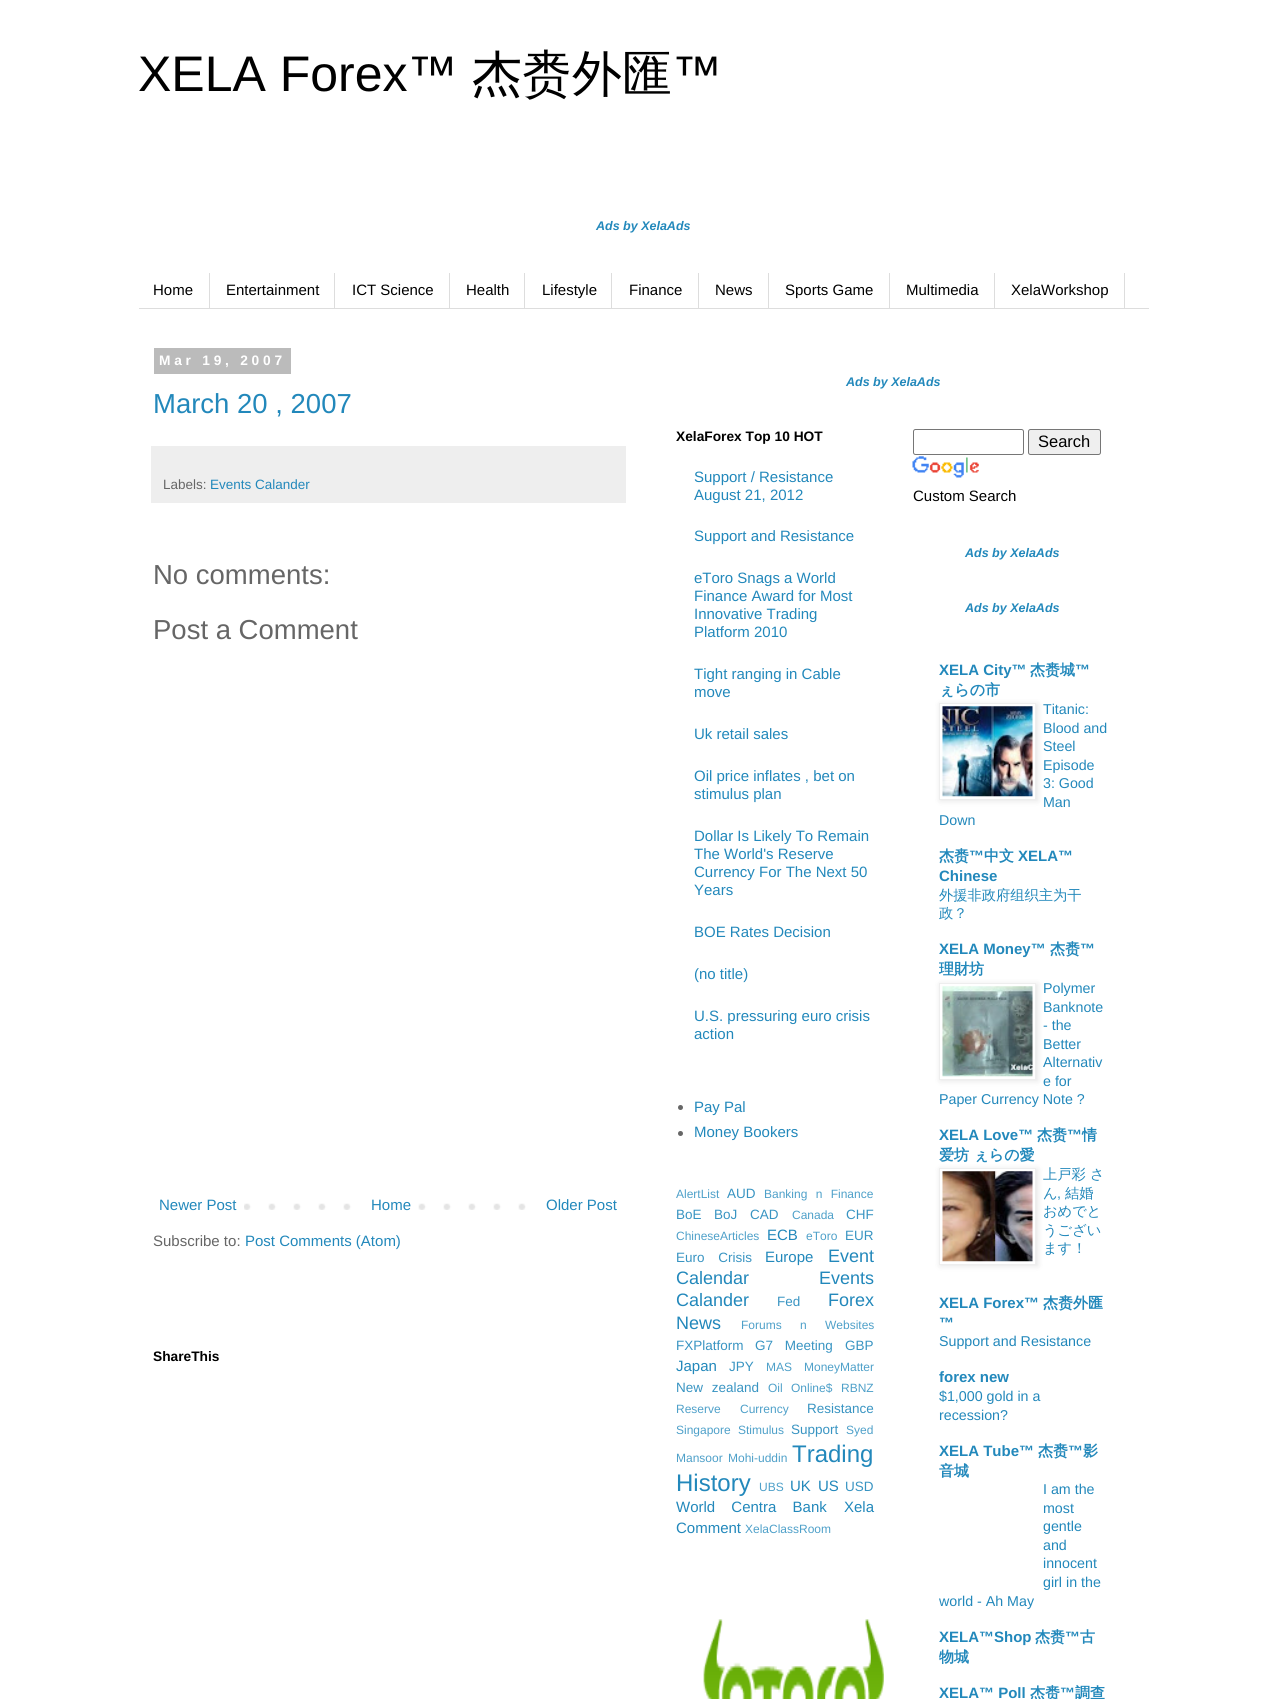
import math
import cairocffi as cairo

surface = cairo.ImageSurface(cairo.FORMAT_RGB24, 1286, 1699)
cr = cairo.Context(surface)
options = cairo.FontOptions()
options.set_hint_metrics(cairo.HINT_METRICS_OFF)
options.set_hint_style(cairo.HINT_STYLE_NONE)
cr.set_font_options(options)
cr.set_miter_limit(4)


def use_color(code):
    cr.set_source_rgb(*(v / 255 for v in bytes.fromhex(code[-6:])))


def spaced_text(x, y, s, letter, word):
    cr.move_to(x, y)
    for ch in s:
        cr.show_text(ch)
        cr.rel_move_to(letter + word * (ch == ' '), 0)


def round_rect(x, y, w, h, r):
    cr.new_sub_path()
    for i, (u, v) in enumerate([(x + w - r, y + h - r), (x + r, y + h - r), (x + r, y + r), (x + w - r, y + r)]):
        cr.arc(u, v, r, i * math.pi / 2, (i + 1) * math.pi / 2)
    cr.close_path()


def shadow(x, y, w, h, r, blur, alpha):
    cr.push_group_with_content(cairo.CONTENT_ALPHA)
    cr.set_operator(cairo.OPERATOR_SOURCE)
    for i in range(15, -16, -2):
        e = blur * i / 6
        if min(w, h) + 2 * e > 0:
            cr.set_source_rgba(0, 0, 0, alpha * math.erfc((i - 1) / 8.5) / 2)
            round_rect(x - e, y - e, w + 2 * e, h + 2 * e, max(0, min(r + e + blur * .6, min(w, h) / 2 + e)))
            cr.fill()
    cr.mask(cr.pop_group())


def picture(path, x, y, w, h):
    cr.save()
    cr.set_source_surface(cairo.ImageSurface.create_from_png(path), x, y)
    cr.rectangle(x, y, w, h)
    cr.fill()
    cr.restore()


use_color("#ffffff")
cr.paint()
cr.select_font_face("Liberation Sans")
cr.set_font_size(50)
use_color("#000000")
cr.move_to(138, 91)
cr.show_text("XELA Forex™")
cr.select_font_face("WenQuanYi Zen Hei Medium")
cr.move_to(472, 91)
cr.show_text("杰赉外匯")
cr.select_font_face("Liberation Sans")
cr.move_to(672, 91)
cr.show_text("™")
cr.select_font_face("Liberation Sans", cairo.FONT_SLANT_ITALIC, cairo.FONT_WEIGHT_BOLD)
cr.set_font_size(12.5)
use_color("#2288bb")
cr.move_to(596, 230)
cr.show_text("Ads by XelaAds")
use_color("#dddddd")
cr.rectangle(139, 308, 1010, 1)
cr.fill()
cr.rectangle(209, 273, 1, 35)
cr.fill()
cr.select_font_face("Liberation Sans")
cr.set_font_size(15)
use_color("#000000")
cr.move_to(153, 295)
cr.show_text("Home")
use_color("#dddddd")
cr.rectangle(334, 273, 1, 35)
cr.fill()
use_color("#000000")
cr.move_to(226, 295)
cr.show_text("Entertainment")
use_color("#dddddd")
cr.rectangle(449, 273, 1, 35)
cr.fill()
use_color("#000000")
cr.move_to(352, 295)
cr.show_text("ICT Science")
use_color("#dddddd")
cr.rectangle(524, 273, 1, 35)
cr.fill()
use_color("#000000")
cr.move_to(466, 295)
cr.show_text("Health")
use_color("#dddddd")
cr.rectangle(611, 273, 1, 35)
cr.fill()
use_color("#000000")
cr.move_to(542, 295)
cr.show_text("Lifestyle")
use_color("#dddddd")
cr.rectangle(698, 273, 1, 35)
cr.fill()
use_color("#000000")
cr.move_to(629, 295)
cr.show_text("Finance")
use_color("#dddddd")
cr.rectangle(768, 273, 1, 35)
cr.fill()
use_color("#000000")
cr.move_to(715, 295)
cr.show_text("News")
use_color("#dddddd")
cr.rectangle(889, 273, 1, 35)
cr.fill()
use_color("#000000")
cr.move_to(785, 295)
cr.show_text("Sports Game")
use_color("#dddddd")
cr.rectangle(994, 273, 1, 35)
cr.fill()
use_color("#000000")
cr.move_to(906, 295)
cr.show_text("Multimedia")
use_color("#dddddd")
cr.rectangle(1124, 273, 1, 35)
cr.fill()
use_color("#000000")
cr.move_to(1011, 295)
cr.show_text("XelaWorkshop")
use_color("#bbbbbb")
cr.rectangle(154, 348, 137, 26)
cr.fill()
cr.select_font_face("Liberation Sans", cairo.FONT_SLANT_NORMAL, cairo.FONT_WEIGHT_BOLD)
cr.set_font_size(13.75)
use_color("#ffffff")
spaced_text(159, 365, "Mar 19, 2007", 3.75, 0)
cr.select_font_face("Liberation Sans")
cr.set_font_size(27.5)
use_color("#2288bb")
cr.move_to(153, 413)
cr.show_text("March 20 , 2007")
use_color("#eeeeee")
cr.rectangle(151, 446, 475, 57)
cr.fill()
cr.set_font_size(13.5)
use_color("#666666")
cr.move_to(163, 489)
cr.show_text("Labels:")
use_color("#2288bb")
cr.move_to(210, 489)
cr.show_text("Events Calander")
cr.set_font_size(27.5)
use_color("#666666")
cr.move_to(153, 584)
cr.show_text("No comments:")
cr.move_to(153, 639)
cr.show_text("Post a Comment")
picture("img1.png", 244, 1203, 282, 7)
cr.set_font_size(15)
use_color("#2288bb")
cr.move_to(159, 1210)
cr.show_text("Newer Post")
use_color("#ffffff")
cr.rectangle(368, 1203, 33, 7)
cr.fill()
use_color("#2288bb")
cr.move_to(371, 1210)
cr.show_text("Home")
cr.move_to(546, 1210)
cr.show_text("Older Post")
use_color("#666666")
cr.move_to(153, 1246)
cr.show_text("Subscribe to:")
use_color("#2288bb")
cr.move_to(245, 1246)
cr.show_text("Post Comments (Atom)")
cr.select_font_face("Liberation Sans", cairo.FONT_SLANT_NORMAL, cairo.FONT_WEIGHT_BOLD)
cr.set_font_size(13.75)
use_color("#000000")
cr.move_to(153, 1361)
cr.show_text("ShareThis")
cr.select_font_face("Liberation Sans", cairo.FONT_SLANT_ITALIC, cairo.FONT_WEIGHT_BOLD)
cr.set_font_size(12.5)
use_color("#2288bb")
cr.move_to(846, 386)
cr.show_text("Ads by XelaAds")
cr.select_font_face("Liberation Sans", cairo.FONT_SLANT_NORMAL, cairo.FONT_WEIGHT_BOLD)
cr.set_font_size(13.75)
use_color("#000000")
cr.move_to(676, 441)
cr.show_text("XelaForex Top 10 HOT")
cr.select_font_face("Liberation Sans")
cr.set_font_size(15)
use_color("#2288bb")
cr.move_to(694, 482)
cr.show_text("Support / Resistance")
cr.move_to(694, 500)
cr.show_text("August 21, 2012")
cr.move_to(694, 541)
cr.show_text("Support and Resistance")
cr.move_to(694, 583)
cr.show_text("eToro Snags a World")
cr.move_to(694, 601)
cr.show_text("Finance Award for Most")
cr.move_to(694, 619)
cr.show_text("Innovative Trading")
cr.move_to(694, 637)
cr.show_text("Platform 2010")
cr.move_to(694, 679)
cr.show_text("Tight ranging in Cable")
cr.move_to(694, 697)
cr.show_text("move")
cr.move_to(694, 739)
cr.show_text("Uk retail sales")
cr.move_to(694, 781)
cr.show_text("Oil price inflates , bet on")
cr.move_to(694, 799)
cr.show_text("stimulus plan")
cr.move_to(694, 841)
cr.show_text("Dollar Is Likely To Remain")
cr.move_to(694, 859)
cr.show_text("The World's Reserve")
cr.move_to(694, 877)
cr.show_text("Currency For The Next 50")
cr.move_to(694, 895)
cr.show_text("Years")
cr.move_to(694, 937)
cr.show_text("BOE Rates Decision")
cr.move_to(694, 979)
cr.show_text("(no title)")
cr.move_to(694, 1021)
cr.show_text("U.S. pressuring euro crisis")
cr.move_to(694, 1039)
cr.show_text("action")
use_color("#666666")
cr.new_path()
cr.arc(680.5, 1107.5, 2.5, 0, 2 * math.pi)
cr.fill()
use_color("#2288bb")
cr.move_to(694, 1112)
cr.show_text("Pay Pal")
use_color("#666666")
cr.new_path()
cr.arc(680.5, 1133.5, 2.5, 0, 2 * math.pi)
cr.fill()
use_color("#2288bb")
cr.move_to(694, 1137)
cr.show_text("Money Bookers")
cr.set_font_size(12)
use_color("#4ea0c9")
cr.move_to(676, 1198)
cr.show_text("AlertList")
cr.set_font_size(13.5)
use_color("#3894c2")
cr.move_to(727, 1198)
cr.show_text("AUD")
cr.set_font_size(12)
use_color("#4ea0c9")
spaced_text(764, 1198, "Banking n Finance", 0, 5)
cr.set_font_size(13.5)
use_color("#3894c2")
cr.move_to(676, 1219)
cr.show_text("BoE")
cr.move_to(714, 1219)
cr.show_text("BoJ")
cr.move_to(750, 1219)
cr.show_text("CAD")
cr.set_font_size(12)
use_color("#4ea0c9")
cr.move_to(792, 1219)
cr.show_text("Canada")
cr.set_font_size(13.5)
use_color("#3894c2")
cr.move_to(846, 1219)
cr.show_text("CHF")
cr.set_font_size(12)
use_color("#4ea0c9")
cr.move_to(676, 1240)
cr.show_text("ChineseArticles")
cr.set_font_size(15)
use_color("#2288bb")
cr.move_to(767, 1240)
cr.show_text("ECB")
cr.set_font_size(12)
use_color("#4ea0c9")
cr.move_to(806, 1240)
cr.show_text("eToro")
cr.set_font_size(13.5)
use_color("#3894c2")
cr.move_to(845, 1240)
cr.show_text("EUR")
spaced_text(676, 1262, "Euro Crisis", 0, 10)
cr.set_font_size(15)
use_color("#2288bb")
cr.move_to(765, 1262)
cr.show_text("Europe")
cr.set_font_size(18)
cr.move_to(828, 1262)
cr.show_text("Event")
cr.move_to(676, 1284)
cr.show_text("Calendar")
cr.move_to(819, 1284)
cr.show_text("Events")
cr.move_to(676, 1306)
cr.show_text("Calander")
cr.set_font_size(13.5)
use_color("#3894c2")
cr.move_to(777, 1306)
cr.show_text("Fed")
cr.set_font_size(18)
use_color("#2288bb")
cr.move_to(828, 1306)
cr.show_text("Forex")
cr.move_to(676, 1329)
cr.show_text("News")
cr.set_font_size(12)
use_color("#4ea0c9")
spaced_text(741, 1329, "Forums n Websites", 0, 15)
cr.set_font_size(13.5)
use_color("#3894c2")
cr.move_to(676, 1350)
cr.show_text("FXPlatform")
spaced_text(755, 1350, "G7 Meeting", 0, 8)
cr.move_to(845, 1350)
cr.show_text("GBP")
cr.set_font_size(15)
use_color("#2288bb")
cr.move_to(676, 1371)
cr.show_text("Japan")
cr.set_font_size(13.5)
use_color("#3894c2")
cr.move_to(729, 1371)
cr.show_text("JPY")
cr.set_font_size(12)
use_color("#4ea0c9")
cr.move_to(766, 1371)
cr.show_text("MAS")
cr.move_to(804, 1371)
cr.show_text("MoneyMatter")
cr.set_font_size(13.5)
use_color("#3894c2")
spaced_text(676, 1392, "New zealand", 0, 5)
cr.set_font_size(12)
use_color("#4ea0c9")
cr.move_to(768, 1392)
cr.show_text("Oil")
cr.move_to(791, 1392)
cr.show_text("Online$")
cr.move_to(841, 1392)
cr.show_text("RBNZ")
spaced_text(676, 1413, "Reserve Currency", 0, 16)
cr.set_font_size(13.5)
use_color("#3894c2")
cr.move_to(807, 1413)
cr.show_text("Resistance")
cr.set_font_size(12)
use_color("#4ea0c9")
cr.move_to(676, 1434)
cr.show_text("Singapore")
cr.move_to(738, 1434)
cr.show_text("Stimulus")
cr.set_font_size(13.5)
use_color("#3894c2")
cr.move_to(791, 1434)
cr.show_text("Support")
cr.set_font_size(12)
use_color("#4ea0c9")
cr.move_to(846, 1434)
cr.show_text("Syed")
spaced_text(676, 1462, "Mansoor Mohi-uddin", 0, 2)
cr.set_font_size(24)
use_color("#2288bb")
cr.move_to(792, 1462)
cr.show_text("Trading")
cr.move_to(676, 1491)
cr.show_text("History")
cr.set_font_size(12)
use_color("#4ea0c9")
cr.move_to(759, 1491)
cr.show_text("UBS")
cr.set_font_size(15)
use_color("#2288bb")
cr.move_to(790, 1491)
cr.show_text("UK")
cr.move_to(818, 1491)
cr.show_text("US")
cr.set_font_size(13.5)
use_color("#3894c2")
cr.move_to(845, 1491)
cr.show_text("USD")
cr.set_font_size(15)
use_color("#2288bb")
spaced_text(676, 1512, "World Centra Bank", 0, 12)
cr.move_to(844, 1512)
cr.show_text("Xela")
cr.move_to(676, 1533)
cr.show_text("Comment")
cr.set_font_size(12)
use_color("#4ea0c9")
cr.move_to(745, 1533)
cr.show_text("XelaClassRoom")
picture("img2.png", 703, 1619, 181, 80)
round_rect(913.5, 429.5, 110, 25, 2)
use_color("#767676")
cr.set_line_width(1)
cr.stroke()
use_color("#efefef")
round_rect(1028.5, 429.5, 72, 25, 2)
cr.fill_preserve()
use_color("#767676")
cr.stroke()
cr.set_font_size(16.5)
use_color("#000000")
cr.move_to(1038, 447)
cr.show_text("Search")
picture("img3.png", 912, 456, 67, 22)
cr.set_font_size(15)
cr.move_to(913, 501)
cr.show_text("Custom Search")
cr.select_font_face("Liberation Sans", cairo.FONT_SLANT_ITALIC, cairo.FONT_WEIGHT_BOLD)
cr.set_font_size(12.5)
use_color("#2288bb")
cr.move_to(965, 557)
cr.show_text("Ads by XelaAds")
cr.move_to(965, 612)
cr.show_text("Ads by XelaAds")
cr.select_font_face("Liberation Sans", cairo.FONT_SLANT_NORMAL, cairo.FONT_WEIGHT_BOLD)
cr.set_font_size(15)
cr.move_to(939, 675)
cr.show_text("XELA City™")
cr.select_font_face("WenQuanYi Zen Hei", cairo.FONT_SLANT_NORMAL, cairo.FONT_WEIGHT_BOLD)
cr.move_to(1030, 675)
cr.show_text("杰赉城")
cr.select_font_face("Liberation Sans", cairo.FONT_SLANT_NORMAL, cairo.FONT_WEIGHT_BOLD)
cr.move_to(1075, 675)
cr.show_text("™")
cr.select_font_face("WenQuanYi Zen Hei", cairo.FONT_SLANT_NORMAL, cairo.FONT_WEIGHT_BOLD)
cr.move_to(939, 695)
cr.show_text("ぇらの市")
cr.save()
cr.set_fill_rule(cairo.FILL_RULE_EVEN_ODD)
cr.new_path()
cr.move_to(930, 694)
cr.line_to(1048, 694)
cr.line_to(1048, 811)
cr.line_to(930, 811)
cr.close_path()
cr.move_to(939, 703)
cr.line_to(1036, 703)
cr.line_to(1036, 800)
cr.line_to(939, 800)
cr.close_path()
cr.clip()
use_color("#000000")
shadow(940, 704, 98, 97, 0, 3, 0.1)
cr.restore()
cr.rectangle(939.5, 703.5, 96, 96)
use_color("#eeeeee")
cr.stroke()
picture("img4.png", 942, 706, 91, 91)
cr.select_font_face("Liberation Sans")
cr.set_font_size(14.25)
use_color("#2288bb")
cr.move_to(1043, 714)
cr.show_text("Titanic:")
cr.move_to(1043, 733)
cr.show_text("Blood and")
cr.move_to(1043, 751)
cr.show_text("Steel")
cr.move_to(1043, 770)
cr.show_text("Episode")
cr.move_to(1043, 788)
cr.show_text("3: Good")
cr.move_to(1043, 807)
cr.show_text("Man")
cr.move_to(939, 825)
cr.show_text("Down")
cr.select_font_face("WenQuanYi Zen Hei", cairo.FONT_SLANT_NORMAL, cairo.FONT_WEIGHT_BOLD)
cr.set_font_size(15)
cr.move_to(939, 861)
cr.show_text("杰赉")
cr.select_font_face("Liberation Sans", cairo.FONT_SLANT_NORMAL, cairo.FONT_WEIGHT_BOLD)
cr.move_to(969, 861)
cr.show_text("™")
cr.select_font_face("WenQuanYi Zen Hei", cairo.FONT_SLANT_NORMAL, cairo.FONT_WEIGHT_BOLD)
cr.move_to(984, 861)
cr.show_text("中文")
cr.select_font_face("Liberation Sans", cairo.FONT_SLANT_NORMAL, cairo.FONT_WEIGHT_BOLD)
cr.move_to(1018, 861)
cr.show_text("XELA™")
cr.move_to(939, 881)
cr.show_text("Chinese")
cr.select_font_face("WenQuanYi Zen Hei Medium")
cr.set_font_size(14.25)
cr.move_to(939, 900)
cr.show_text("外援非政府组织主为干")
cr.move_to(939, 918)
cr.show_text("政？")
cr.select_font_face("Liberation Sans", cairo.FONT_SLANT_NORMAL, cairo.FONT_WEIGHT_BOLD)
cr.set_font_size(15)
cr.move_to(939, 954)
cr.show_text("XELA Money™")
cr.select_font_face("WenQuanYi Zen Hei", cairo.FONT_SLANT_NORMAL, cairo.FONT_WEIGHT_BOLD)
cr.move_to(1050, 954)
cr.show_text("杰赉")
cr.select_font_face("Liberation Sans", cairo.FONT_SLANT_NORMAL, cairo.FONT_WEIGHT_BOLD)
cr.move_to(1080, 954)
cr.show_text("™")
cr.select_font_face("WenQuanYi Zen Hei", cairo.FONT_SLANT_NORMAL, cairo.FONT_WEIGHT_BOLD)
cr.move_to(939, 974)
cr.show_text("理財坊")
cr.save()
cr.set_fill_rule(cairo.FILL_RULE_EVEN_ODD)
cr.new_path()
cr.move_to(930, 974)
cr.line_to(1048, 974)
cr.line_to(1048, 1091)
cr.line_to(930, 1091)
cr.close_path()
cr.move_to(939, 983)
cr.line_to(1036, 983)
cr.line_to(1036, 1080)
cr.line_to(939, 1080)
cr.close_path()
cr.clip()
use_color("#000000")
shadow(940, 984, 98, 97, 0, 3, 0.1)
cr.restore()
cr.rectangle(939.5, 983.5, 96, 96)
use_color("#eeeeee")
cr.stroke()
picture("img5.png", 942, 986, 91, 91)
cr.select_font_face("Liberation Sans")
cr.set_font_size(14.25)
use_color("#2288bb")
cr.move_to(1043, 993)
cr.show_text("Polymer")
cr.move_to(1043, 1012)
cr.show_text("Banknote")
cr.move_to(1043, 1030)
cr.show_text("- the")
cr.move_to(1043, 1049)
cr.show_text("Better")
cr.move_to(1043, 1067)
cr.show_text("Alternativ")
cr.move_to(1043, 1086)
cr.show_text("e for")
cr.move_to(939, 1104)
cr.show_text("Paper Currency Note ?")
cr.select_font_face("Liberation Sans", cairo.FONT_SLANT_NORMAL, cairo.FONT_WEIGHT_BOLD)
cr.set_font_size(15)
cr.move_to(939, 1140)
cr.show_text("XELA Love™")
cr.select_font_face("WenQuanYi Zen Hei", cairo.FONT_SLANT_NORMAL, cairo.FONT_WEIGHT_BOLD)
cr.move_to(1037, 1140)
cr.show_text("杰赉")
cr.select_font_face("Liberation Sans", cairo.FONT_SLANT_NORMAL, cairo.FONT_WEIGHT_BOLD)
cr.move_to(1067, 1140)
cr.show_text("™")
cr.select_font_face("WenQuanYi Zen Hei", cairo.FONT_SLANT_NORMAL, cairo.FONT_WEIGHT_BOLD)
cr.move_to(1082, 1140)
cr.show_text("情")
cr.move_to(939, 1160)
cr.show_text("爱坊 ぇらの愛")
cr.save()
cr.set_fill_rule(cairo.FILL_RULE_EVEN_ODD)
cr.new_path()
cr.move_to(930, 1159)
cr.line_to(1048, 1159)
cr.line_to(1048, 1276)
cr.line_to(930, 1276)
cr.close_path()
cr.move_to(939, 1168)
cr.line_to(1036, 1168)
cr.line_to(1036, 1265)
cr.line_to(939, 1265)
cr.close_path()
cr.clip()
use_color("#000000")
shadow(940, 1169, 98, 97, 0, 3, 0.1)
cr.restore()
cr.rectangle(939.5, 1168.5, 96, 96)
use_color("#eeeeee")
cr.stroke()
picture("img6.png", 942, 1171, 91, 91)
cr.select_font_face("WenQuanYi Zen Hei Medium")
cr.set_font_size(14.25)
use_color("#2288bb")
cr.move_to(1043, 1179)
cr.show_text("上戸彩 さ")
cr.move_to(1043, 1198)
cr.show_text("ん")
cr.select_font_face("Liberation Sans")
cr.move_to(1057, 1198)
cr.show_text(",")
cr.select_font_face("WenQuanYi Zen Hei Medium")
cr.move_to(1065, 1198)
cr.show_text("結婚")
cr.move_to(1043, 1216)
cr.show_text("おめでと")
cr.move_to(1043, 1235)
cr.show_text("うござい")
cr.move_to(1043, 1253)
cr.show_text("ます！")
cr.select_font_face("Liberation Sans", cairo.FONT_SLANT_NORMAL, cairo.FONT_WEIGHT_BOLD)
cr.set_font_size(15)
cr.move_to(939, 1308)
cr.show_text("XELA Forex™")
cr.select_font_face("WenQuanYi Zen Hei", cairo.FONT_SLANT_NORMAL, cairo.FONT_WEIGHT_BOLD)
cr.move_to(1043, 1308)
cr.show_text("杰赉外匯")
cr.select_font_face("Liberation Sans", cairo.FONT_SLANT_NORMAL, cairo.FONT_WEIGHT_BOLD)
cr.move_to(939, 1328)
cr.show_text("™")
cr.select_font_face("Liberation Sans")
cr.set_font_size(14.25)
cr.move_to(939, 1346)
cr.show_text("Support and Resistance")
cr.select_font_face("Liberation Sans", cairo.FONT_SLANT_NORMAL, cairo.FONT_WEIGHT_BOLD)
cr.set_font_size(15)
cr.move_to(939, 1382)
cr.show_text("forex new")
cr.select_font_face("Liberation Sans")
cr.set_font_size(14.25)
cr.move_to(939, 1401)
cr.show_text("$1,000 gold in a")
cr.move_to(939, 1420)
cr.show_text("recession?")
cr.select_font_face("Liberation Sans", cairo.FONT_SLANT_NORMAL, cairo.FONT_WEIGHT_BOLD)
cr.set_font_size(15)
cr.move_to(939, 1456)
cr.show_text("XELA Tube™")
cr.select_font_face("WenQuanYi Zen Hei", cairo.FONT_SLANT_NORMAL, cairo.FONT_WEIGHT_BOLD)
cr.move_to(1038, 1456)
cr.show_text("杰赉")
cr.select_font_face("Liberation Sans", cairo.FONT_SLANT_NORMAL, cairo.FONT_WEIGHT_BOLD)
cr.move_to(1068, 1456)
cr.show_text("™")
cr.select_font_face("WenQuanYi Zen Hei", cairo.FONT_SLANT_NORMAL, cairo.FONT_WEIGHT_BOLD)
cr.move_to(1083, 1456)
cr.show_text("影")
cr.move_to(939, 1476)
cr.show_text("音城")
cr.select_font_face("Liberation Sans")
cr.set_font_size(14.25)
cr.move_to(1043, 1494)
cr.show_text("I am the")
cr.move_to(1043, 1513)
cr.show_text("most")
cr.move_to(1043, 1531)
cr.show_text("gentle")
cr.move_to(1043, 1550)
cr.show_text("and")
cr.move_to(1043, 1568)
cr.show_text("innocent")
cr.move_to(1043, 1587)
cr.show_text("girl in the")
cr.move_to(939, 1606)
cr.show_text("world - Ah May")
cr.select_font_face("Liberation Sans", cairo.FONT_SLANT_NORMAL, cairo.FONT_WEIGHT_BOLD)
cr.set_font_size(15)
cr.move_to(939, 1642)
cr.show_text("XELA™Shop")
cr.select_font_face("WenQuanYi Zen Hei", cairo.FONT_SLANT_NORMAL, cairo.FONT_WEIGHT_BOLD)
cr.move_to(1035, 1642)
cr.show_text("杰赉")
cr.select_font_face("Liberation Sans", cairo.FONT_SLANT_NORMAL, cairo.FONT_WEIGHT_BOLD)
cr.move_to(1065, 1642)
cr.show_text("™")
cr.select_font_face("WenQuanYi Zen Hei", cairo.FONT_SLANT_NORMAL, cairo.FONT_WEIGHT_BOLD)
cr.move_to(1080, 1642)
cr.show_text("古")
cr.move_to(939, 1662)
cr.show_text("物城")
cr.select_font_face("Liberation Sans", cairo.FONT_SLANT_NORMAL, cairo.FONT_WEIGHT_BOLD)
cr.move_to(939, 1698)
cr.show_text("XELA™ Poll")
cr.select_font_face("WenQuanYi Zen Hei", cairo.FONT_SLANT_NORMAL, cairo.FONT_WEIGHT_BOLD)
cr.move_to(1030, 1698)
cr.show_text("杰赉")
cr.select_font_face("Liberation Sans", cairo.FONT_SLANT_NORMAL, cairo.FONT_WEIGHT_BOLD)
cr.move_to(1060, 1698)
cr.show_text("™")
cr.select_font_face("WenQuanYi Zen Hei", cairo.FONT_SLANT_NORMAL, cairo.FONT_WEIGHT_BOLD)
cr.move_to(1075, 1698)
cr.show_text("調查")
surface.write_to_png("result.png")
